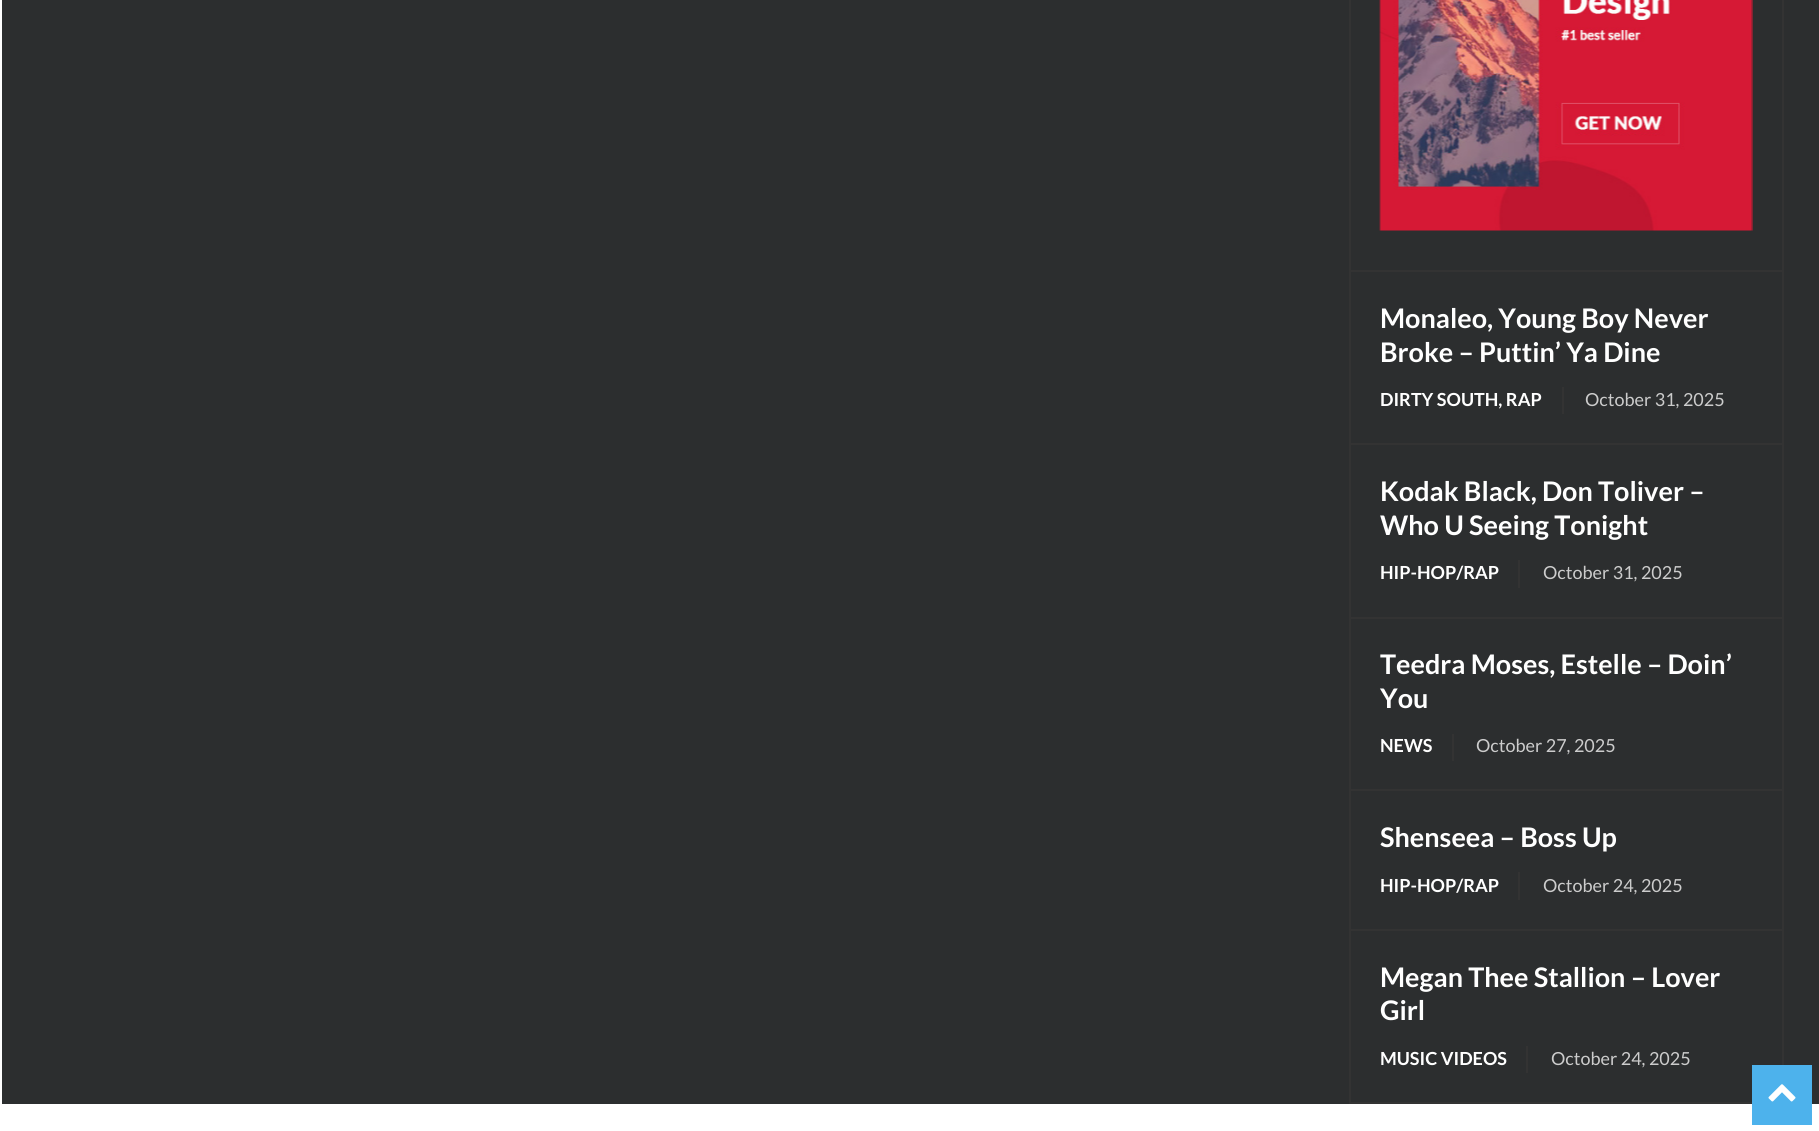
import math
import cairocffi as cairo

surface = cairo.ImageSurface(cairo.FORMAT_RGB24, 1819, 1131)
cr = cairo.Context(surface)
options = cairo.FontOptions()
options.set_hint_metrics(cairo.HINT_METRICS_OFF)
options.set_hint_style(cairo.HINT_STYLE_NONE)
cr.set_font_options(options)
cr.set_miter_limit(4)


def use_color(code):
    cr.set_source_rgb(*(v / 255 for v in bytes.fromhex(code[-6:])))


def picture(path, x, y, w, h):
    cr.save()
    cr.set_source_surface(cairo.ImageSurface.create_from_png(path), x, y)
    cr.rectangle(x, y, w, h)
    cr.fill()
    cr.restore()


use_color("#ffffff")
cr.paint()
use_color("#2c2e2f")
cr.rectangle(2, 0, 1817, 1104)
cr.fill()
cr.rectangle(1350, -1, 433, 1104)
use_color("#333333")
cr.stroke()
cr.rectangle(1350, 270, 432, 2)
cr.fill()
picture("img1.png", 1379, 0, 374, 231)
cr.select_font_face("Lato", cairo.FONT_SLANT_NORMAL, cairo.FONT_WEIGHT_BOLD)
cr.set_font_size(27)
use_color("#ffffff")
cr.move_to(1380, 328)
cr.show_text("Monaleo, Young Boy Never")
cr.move_to(1380, 362)
cr.show_text("Broke – Puttin’ Ya Dine")
use_color("#333333")
cr.rectangle(1562, 387, 2, 27)
cr.fill()
cr.set_font_size(18)
use_color("#ffffff")
cr.move_to(1380, 406)
cr.show_text("DIRTY SOUTH, RAP")
cr.select_font_face("Lato")
use_color("#cccccc")
cr.move_to(1585, 406)
cr.show_text("October 31, 2025")
use_color("#333333")
cr.rectangle(1350, 443, 432, 2)
cr.fill()
cr.select_font_face("Lato", cairo.FONT_SLANT_NORMAL, cairo.FONT_WEIGHT_BOLD)
cr.set_font_size(27)
use_color("#ffffff")
cr.move_to(1380, 501)
cr.show_text("Kodak Black, Don Toliver –")
cr.move_to(1380, 535)
cr.show_text("Who U Seeing Tonight")
use_color("#333333")
cr.rectangle(1518, 560, 2, 28)
cr.fill()
cr.set_font_size(18)
use_color("#ffffff")
cr.move_to(1380, 579)
cr.show_text("HIP-HOP/RAP")
cr.select_font_face("Lato")
use_color("#cccccc")
cr.move_to(1543, 579)
cr.show_text("October 31, 2025")
use_color("#333333")
cr.rectangle(1350, 617, 432, 2)
cr.fill()
cr.select_font_face("Lato", cairo.FONT_SLANT_NORMAL, cairo.FONT_WEIGHT_BOLD)
cr.set_font_size(27)
use_color("#ffffff")
cr.move_to(1380, 674)
cr.show_text("Teedra Moses, Estelle – Doin’")
cr.move_to(1380, 708)
cr.show_text("You")
use_color("#333333")
cr.rectangle(1452, 734, 2, 27)
cr.fill()
cr.set_font_size(18)
use_color("#ffffff")
cr.move_to(1380, 752)
cr.show_text("NEWS")
cr.select_font_face("Lato")
use_color("#cccccc")
cr.move_to(1476, 752)
cr.show_text("October 27, 2025")
use_color("#333333")
cr.rectangle(1350, 789, 432, 2)
cr.fill()
cr.select_font_face("Lato", cairo.FONT_SLANT_NORMAL, cairo.FONT_WEIGHT_BOLD)
cr.set_font_size(27)
use_color("#ffffff")
cr.move_to(1380, 847)
cr.show_text("Shenseea – Boss Up")
use_color("#333333")
cr.rectangle(1518, 872, 2, 28)
cr.fill()
cr.set_font_size(18)
use_color("#ffffff")
cr.move_to(1380, 892)
cr.show_text("HIP-HOP/RAP")
cr.select_font_face("Lato")
use_color("#cccccc")
cr.move_to(1543, 892)
cr.show_text("October 24, 2025")
use_color("#333333")
cr.rectangle(1350, 929, 432, 2)
cr.fill()
cr.select_font_face("Lato", cairo.FONT_SLANT_NORMAL, cairo.FONT_WEIGHT_BOLD)
cr.set_font_size(27)
use_color("#ffffff")
cr.move_to(1380, 987)
cr.show_text("Megan Thee Stallion – Lover")
cr.move_to(1380, 1020)
cr.show_text("Girl")
use_color("#333333")
cr.rectangle(1526, 1046, 2, 27)
cr.fill()
cr.set_font_size(18)
use_color("#ffffff")
cr.move_to(1380, 1065)
cr.show_text("MUSIC VIDEOS")
cr.select_font_face("Lato")
use_color("#cccccc")
cr.move_to(1551, 1065)
cr.show_text("October 24, 2025")
use_color("#4db2ec")
cr.rectangle(1752, 1065, 60, 60)
cr.fill()
picture("img2.png", 1768, 1084, 28, 18)
surface.write_to_png("result.png")
